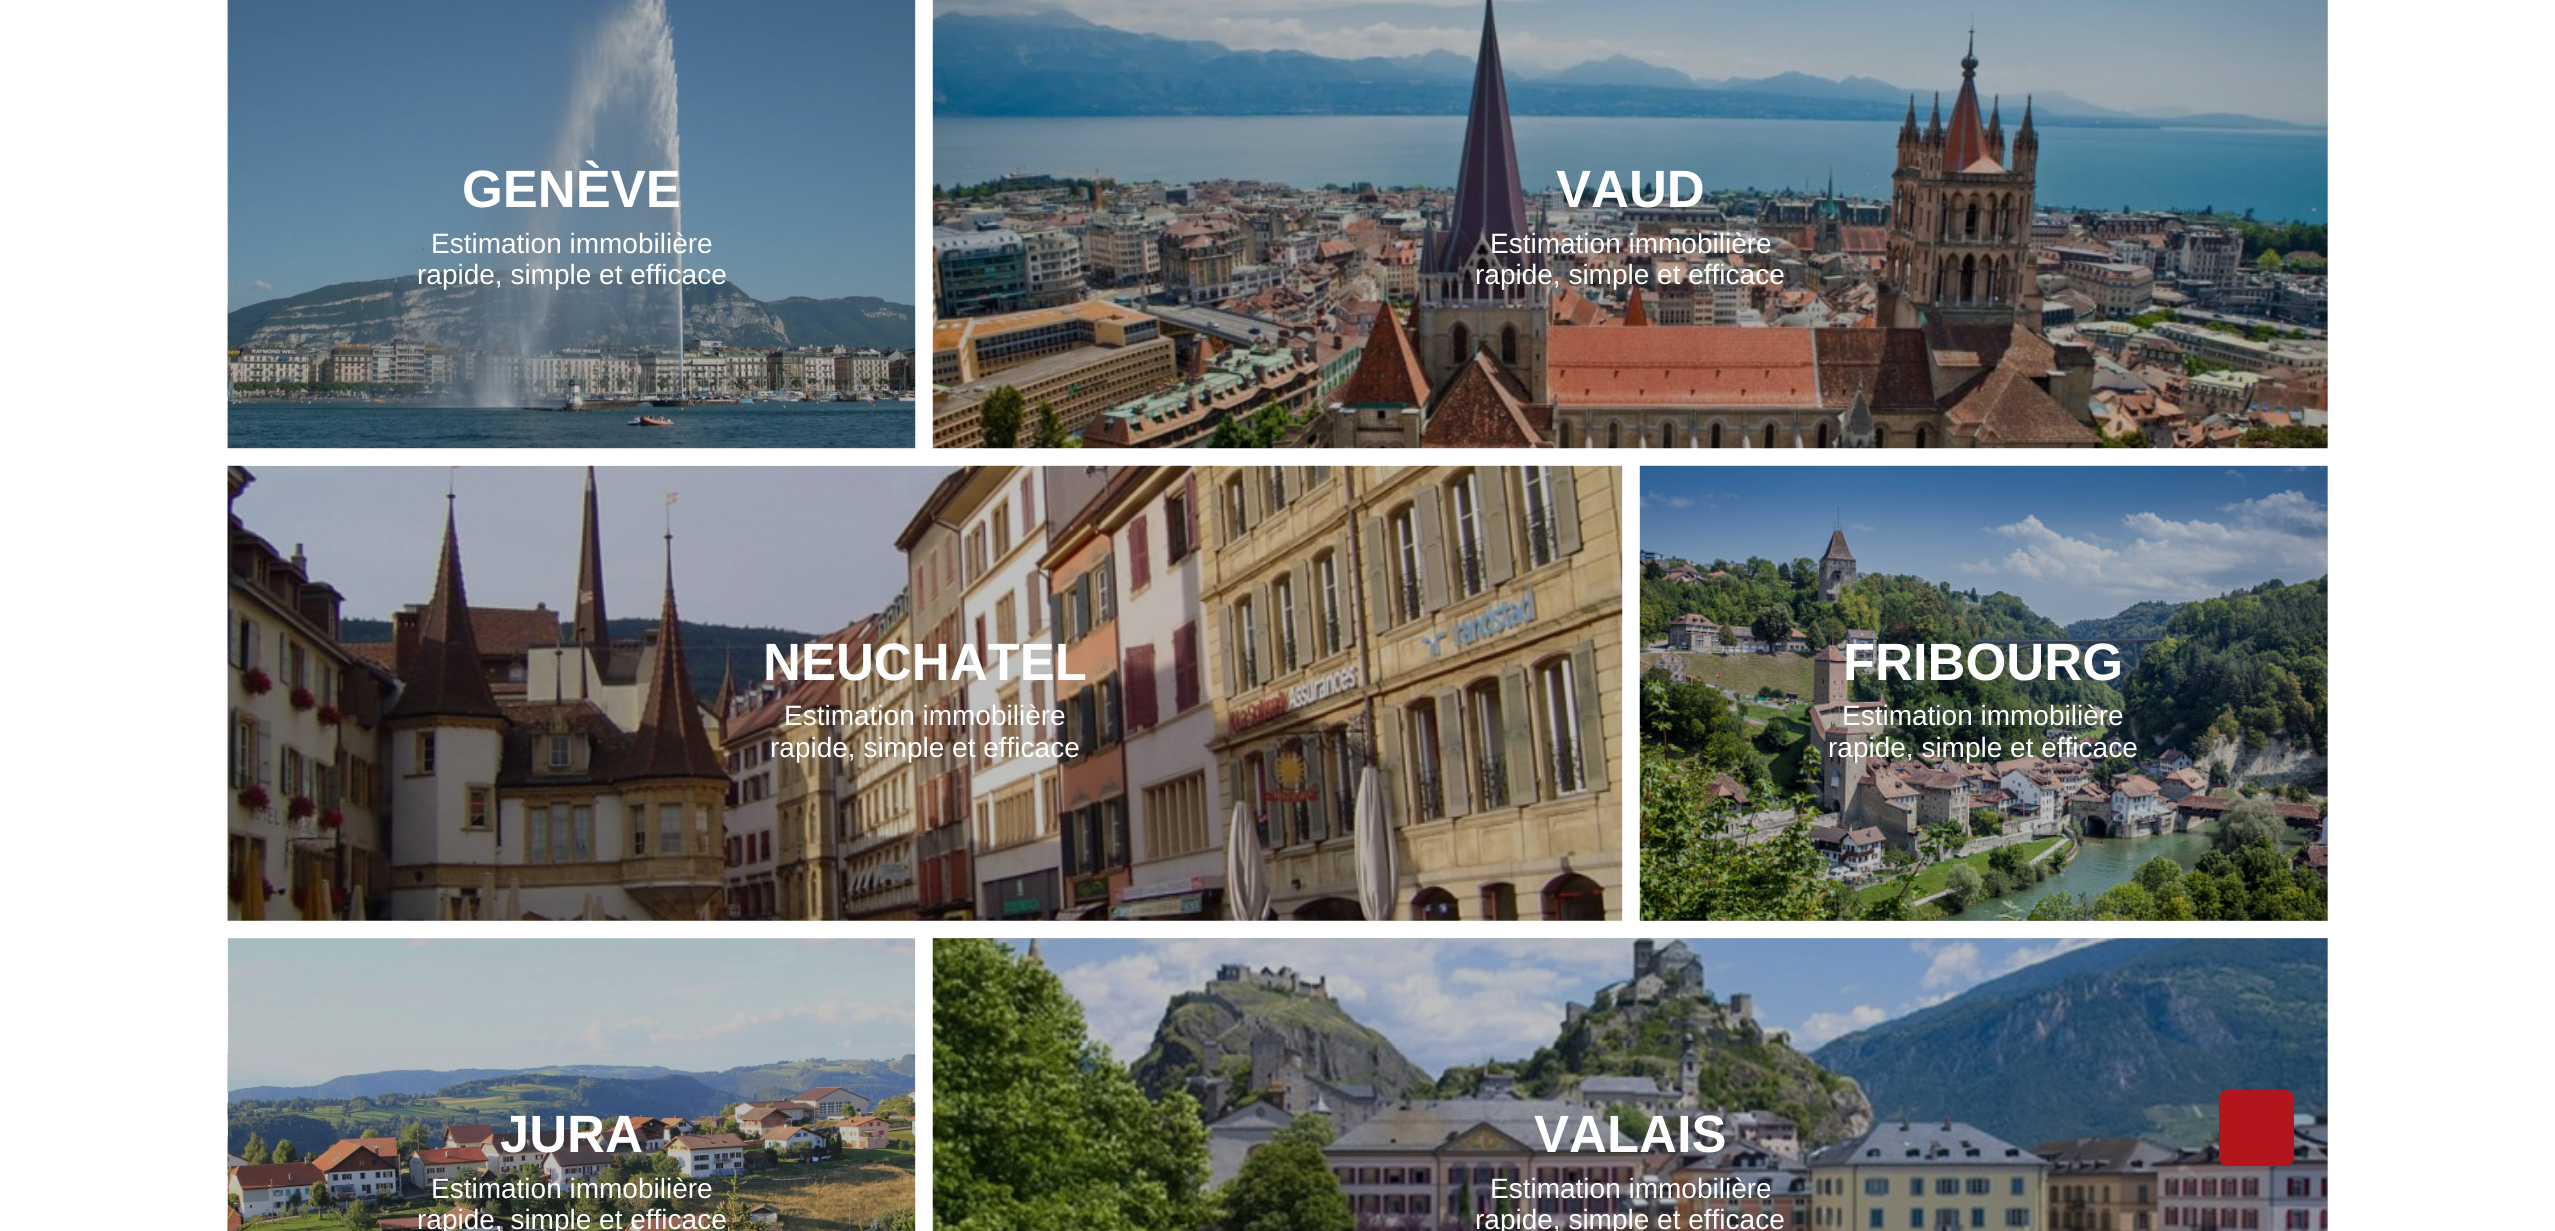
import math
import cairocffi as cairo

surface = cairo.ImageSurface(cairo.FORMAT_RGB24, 2555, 1231)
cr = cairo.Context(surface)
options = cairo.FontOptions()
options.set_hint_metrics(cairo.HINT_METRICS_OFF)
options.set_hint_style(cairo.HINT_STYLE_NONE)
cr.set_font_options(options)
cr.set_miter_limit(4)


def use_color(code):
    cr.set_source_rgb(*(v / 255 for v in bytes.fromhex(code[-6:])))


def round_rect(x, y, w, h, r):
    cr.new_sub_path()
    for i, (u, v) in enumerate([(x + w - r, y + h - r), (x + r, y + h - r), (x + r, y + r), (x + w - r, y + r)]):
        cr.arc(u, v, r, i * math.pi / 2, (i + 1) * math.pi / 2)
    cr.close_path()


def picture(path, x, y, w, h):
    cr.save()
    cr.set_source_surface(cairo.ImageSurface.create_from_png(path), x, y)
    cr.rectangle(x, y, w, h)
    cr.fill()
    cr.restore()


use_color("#ffffff")
cr.paint()
use_color("#bfbfbf")
cr.rectangle(933, 938, 1395, 293)
cr.fill()
cr.rectangle(1640, 466, 688, 455)
cr.fill()
cr.rectangle(2327, 0, 1, 448)
cr.fill()
picture("img1.png", 227, 0, 689, 449)
cr.select_font_face("Liberation Sans", cairo.FONT_SLANT_NORMAL, cairo.FONT_WEIGHT_BOLD)
cr.set_font_size(52.5)
use_color("#ffffff")
cr.move_to(462, 207)
cr.show_text("GENÈVE")
cr.select_font_face("Liberation Sans")
cr.set_font_size(28)
cr.move_to(431, 253)
cr.show_text("Estimation immobilière")
cr.move_to(417, 284)
cr.show_text("rapide, simple et efficace")
picture("img2.png", 932, 0, 1396, 449)
cr.select_font_face("Liberation Sans", cairo.FONT_SLANT_NORMAL, cairo.FONT_WEIGHT_BOLD)
cr.set_font_size(52.5)
cr.move_to(1556, 207)
cr.show_text("VAUD")
cr.select_font_face("Liberation Sans")
cr.set_font_size(28)
cr.move_to(1490, 253)
cr.show_text("Estimation immobilière")
cr.move_to(1475, 284)
cr.show_text("rapide, simple et efficace")
picture("img3.png", 227, 465, 1396, 456)
cr.select_font_face("Liberation Sans", cairo.FONT_SLANT_NORMAL, cairo.FONT_WEIGHT_BOLD)
cr.set_font_size(52.5)
cr.move_to(763, 680)
cr.show_text("NEUCHATEL")
cr.select_font_face("Liberation Sans")
cr.set_font_size(28)
cr.move_to(784, 725)
cr.show_text("Estimation immobilière")
cr.move_to(770, 757)
cr.show_text("rapide, simple et efficace")
picture("img4.png", 1639, 465, 689, 456)
cr.select_font_face("Liberation Sans", cairo.FONT_SLANT_NORMAL, cairo.FONT_WEIGHT_BOLD)
cr.set_font_size(52.5)
cr.move_to(1843, 680)
cr.show_text("FRIBOURG")
cr.select_font_face("Liberation Sans")
cr.set_font_size(28)
cr.move_to(1842, 725)
cr.show_text("Estimation immobilière")
cr.move_to(1828, 757)
cr.show_text("rapide, simple et efficace")
picture("img5.png", 227, 938, 689, 293)
cr.select_font_face("Liberation Sans", cairo.FONT_SLANT_NORMAL, cairo.FONT_WEIGHT_BOLD)
cr.set_font_size(52.5)
cr.move_to(500, 1152)
cr.show_text("JURA")
cr.select_font_face("Liberation Sans")
cr.set_font_size(28)
cr.move_to(431, 1198)
cr.show_text("Estimation immobilière")
cr.move_to(417, 1229)
cr.show_text("rapide, simple et efficace")
picture("img6.png", 932, 938, 1396, 293)
cr.select_font_face("Liberation Sans", cairo.FONT_SLANT_NORMAL, cairo.FONT_WEIGHT_BOLD)
cr.set_font_size(52.5)
cr.move_to(1534, 1152)
cr.show_text("VALAIS")
cr.select_font_face("Liberation Sans")
cr.set_font_size(28)
cr.move_to(1490, 1198)
cr.show_text("Estimation immobilière")
cr.move_to(1475, 1229)
cr.show_text("rapide, simple et efficace")
use_color("#b2151b")
round_rect(2219, 1090, 75, 76, 9)
cr.fill()
surface.write_to_png("result.png")
